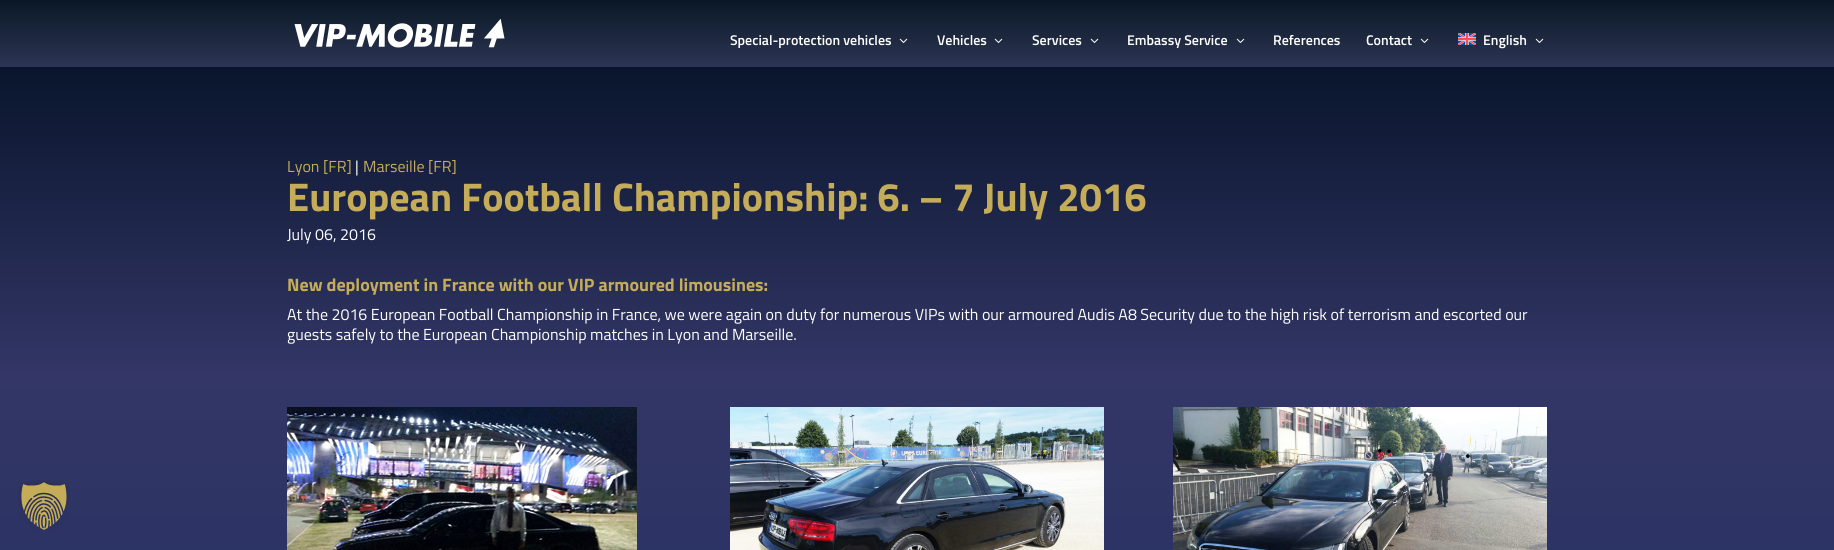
import math
import cairocffi as cairo

surface = cairo.ImageSurface(cairo.FORMAT_RGB24, 1834, 550)
cr = cairo.Context(surface)
options = cairo.FontOptions()
options.set_hint_metrics(cairo.HINT_METRICS_OFF)
options.set_hint_style(cairo.HINT_STYLE_NONE)
cr.set_font_options(options)
cr.set_miter_limit(4)


def use_color(code):
    cr.set_source_rgb(*(v / 255 for v in bytes.fromhex(code[-6:])))


def picture(path, x, y, w, h):
    cr.save()
    cr.set_source_surface(cairo.ImageSurface.create_from_png(path), x, y)
    cr.rectangle(x, y, w, h)
    cr.fill()
    cr.restore()


use_color("#ffffff")
cr.paint()
gradient = cairo.LinearGradient(917, 0, 917, 550)
gradient.add_color_stop_rgba(0, 0, 0.055, 0.125, 1)
gradient.add_color_stop_rgba(0.68, 0.2, 0.212, 0.4, 1)
gradient.add_color_stop_rgba(1, 0.173, 0.204, 0.396, 1)
cr.set_source(gradient)
cr.rectangle(0, 68, 1834, 482)
cr.fill()
use_color("#081329")
cr.rectangle(0, 67, 1834, 1)
cr.fill()
gradient = cairo.LinearGradient(917, 0, 917, 67)
gradient.add_color_stop_rgba(0, 0.039, 0.094, 0.145, 1)
gradient.add_color_stop_rgba(1, 0.173, 0.208, 0.329, 1)
cr.set_source(gradient)
cr.rectangle(0, 0, 1834, 67)
cr.fill()
picture("img1.png", 294, 18, 211, 30)
cr.select_font_face("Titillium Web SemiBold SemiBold")
cr.set_font_size(14)
use_color("#ffffff")
cr.move_to(730, 45)
cr.show_text("Special-protection vehicles")
picture("img2.png", 899, 38, 9, 5)
cr.move_to(937, 45)
cr.show_text("Vehicles")
picture("img2.png", 994, 38, 9, 5)
cr.move_to(1032, 45)
cr.show_text("Services")
picture("img2.png", 1090, 38, 9, 5)
cr.move_to(1127, 45)
cr.show_text("Embassy Service")
picture("img2.png", 1236, 38, 9, 5)
cr.move_to(1273, 45)
cr.show_text("References")
cr.move_to(1366, 45)
cr.show_text("Contact")
picture("img2.png", 1420, 38, 9, 5)
picture("img3.png", 1458, 33, 18, 12)
cr.move_to(1483, 45)
cr.show_text("English")
picture("img2.png", 1535, 38, 9, 5)
cr.select_font_face("Titillium Web")
cr.set_font_size(16)
use_color("#c4ac58")
cr.move_to(287, 172)
cr.show_text("Lyon [FR]")
use_color("#ffffff")
cr.move_to(355, 172)
cr.show_text("|")
use_color("#c4ac58")
cr.move_to(363, 172)
cr.show_text("Marseille [FR]")
cr.select_font_face("Titillium Web", cairo.FONT_SLANT_NORMAL, cairo.FONT_WEIGHT_BOLD)
cr.set_font_size(40)
cr.move_to(287, 211)
cr.show_text("European Football Championship: 6. – 7 July 2016")
cr.select_font_face("Titillium Web")
cr.set_font_size(16)
use_color("#ffffff")
cr.move_to(287, 240)
cr.show_text("July 06, 2016")
cr.select_font_face("Titillium Web", cairo.FONT_SLANT_NORMAL, cairo.FONT_WEIGHT_BOLD)
cr.set_font_size(18)
use_color("#c4ac58")
cr.move_to(287, 291)
cr.show_text("New deployment in France with our VIP armoured limousines:")
cr.select_font_face("Titillium Web")
cr.set_font_size(16)
use_color("#ffffff")
cr.move_to(287, 320)
cr.show_text("At the 2016 European Football Championship in France, we were again on duty for numerous VIPs with our armoured Audis A8 Security due to the high risk of terrorism and escorted our")
cr.move_to(287, 340)
cr.show_text("guests safely to the European Championship matches in Lyon and Marseille.")
picture("img4.png", 287, 407, 350, 143)
picture("img5.png", 730, 407, 374, 143)
picture("img6.png", 1173, 407, 374, 143)
picture("img7.png", 18, 480, 52, 50)
surface.write_to_png("result.png")
